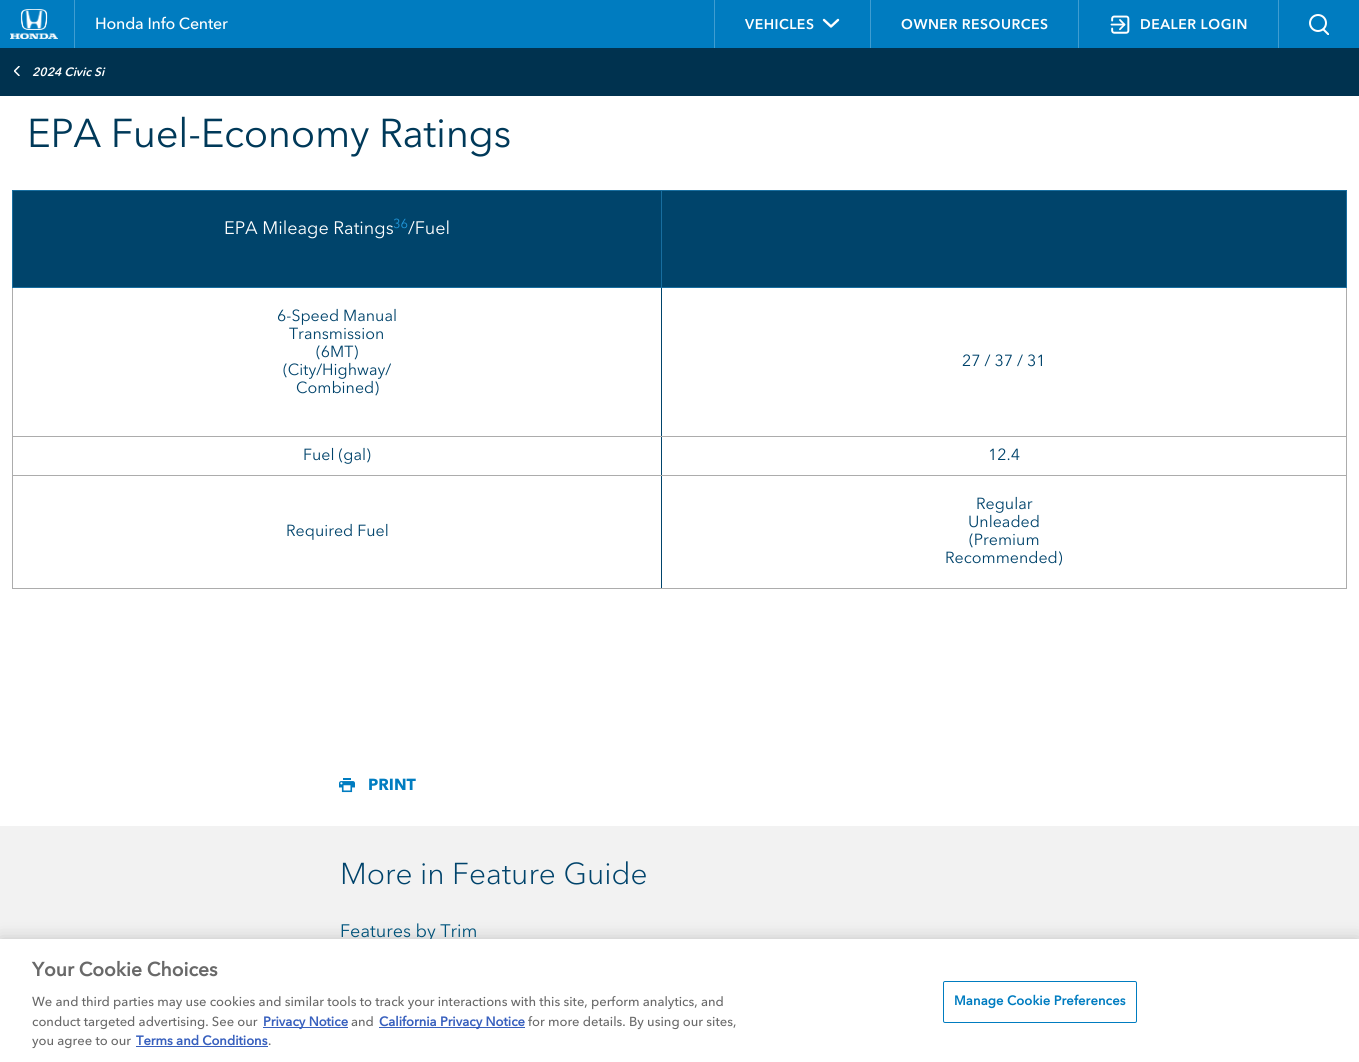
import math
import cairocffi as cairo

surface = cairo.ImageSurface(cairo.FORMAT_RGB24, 1359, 1062)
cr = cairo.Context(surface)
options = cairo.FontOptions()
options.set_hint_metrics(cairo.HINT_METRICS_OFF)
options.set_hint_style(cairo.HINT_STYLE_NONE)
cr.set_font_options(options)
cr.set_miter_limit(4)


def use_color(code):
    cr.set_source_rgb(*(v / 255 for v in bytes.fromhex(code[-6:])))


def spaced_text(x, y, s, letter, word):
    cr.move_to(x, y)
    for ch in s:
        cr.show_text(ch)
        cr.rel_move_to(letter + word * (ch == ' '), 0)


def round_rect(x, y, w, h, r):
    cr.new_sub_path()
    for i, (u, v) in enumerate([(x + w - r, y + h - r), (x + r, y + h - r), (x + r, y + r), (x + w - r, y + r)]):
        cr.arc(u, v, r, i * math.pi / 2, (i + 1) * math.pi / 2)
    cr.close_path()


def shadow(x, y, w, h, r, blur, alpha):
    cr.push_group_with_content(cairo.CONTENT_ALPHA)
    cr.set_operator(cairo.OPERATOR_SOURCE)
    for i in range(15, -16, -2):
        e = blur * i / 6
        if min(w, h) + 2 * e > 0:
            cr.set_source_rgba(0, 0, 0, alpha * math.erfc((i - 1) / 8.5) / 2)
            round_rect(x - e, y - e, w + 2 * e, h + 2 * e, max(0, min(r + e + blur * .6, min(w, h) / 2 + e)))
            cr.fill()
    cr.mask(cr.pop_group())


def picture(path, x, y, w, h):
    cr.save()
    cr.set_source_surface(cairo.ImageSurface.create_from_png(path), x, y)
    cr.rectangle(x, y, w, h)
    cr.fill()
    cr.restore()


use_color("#007cc0")
cr.paint()
use_color("#3f9dd1")
cr.rectangle(74, 0, 1, 48)
cr.fill()
picture("img1.png", 10, 9, 48, 30)
cr.select_font_face("Avenir Next Medium")
cr.set_font_size(16)
use_color("#ffffff")
spaced_text(95, 29, "Honda Info Center", -0.2, 0)
use_color("#3f9dd1")
cr.rectangle(714, 0, 1, 48)
cr.fill()
cr.select_font_face("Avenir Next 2", cairo.FONT_SLANT_NORMAL, cairo.FONT_WEIGHT_BOLD)
cr.set_font_size(14)
use_color("#ffffff")
spaced_text(745, 29, "VEHICLES", 0.5, 0)
cr.new_path()
cr.move_to(838, 20)
cr.line_to(831, 26.5)
cr.line_to(824, 20)
cr.set_line_width(2.4)
cr.set_line_cap(cairo.LINE_CAP_ROUND)
cr.set_line_join(cairo.LINE_JOIN_ROUND)
cr.stroke()
use_color("#3f9dd1")
cr.rectangle(870, 0, 1, 48)
cr.fill()
use_color("#ffffff")
spaced_text(901, 29, "OWNER RESOURCES", 0.5, 0)
use_color("#3f9dd1")
cr.rectangle(1078, 0, 1, 48)
cr.fill()
picture("img2.png", 1110, 15, 20, 19)
use_color("#ffffff")
spaced_text(1140, 29, "DEALER LOGIN", 0.5, 0)
use_color("#3f9dd1")
cr.rectangle(1278, 0, 1, 48)
cr.fill()
cr.arc(1318, 23, 8, 0, 2 * math.pi)
use_color("#ffffff")
cr.set_line_width(2)
cr.set_line_cap(cairo.LINE_CAP_BUTT)
cr.set_line_join(cairo.LINE_JOIN_MITER)
cr.stroke()
cr.save()
cr.rectangle(1309, 14, 20, 21)
cr.clip()
cr.new_path()
cr.move_to(1323.5, 29.5)
cr.line_to(1329, 35)
cr.set_line_cap(cairo.LINE_CAP_SQUARE)
cr.stroke()
cr.restore()
cr.rectangle(0, 96, 1359, 730)
cr.fill()
use_color("#00324f")
cr.rectangle(0, 48, 1359, 48)
cr.fill()
cr.save()
cr.new_path()
cr.move_to(20, 66)
cr.line_to(20, 76)
cr.line_to(14, 76)
cr.line_to(14, 66)
cr.close_path()
cr.clip()
cr.new_path()
cr.move_to(19, 75.5)
cr.line_to(14.5, 71)
cr.line_to(19, 66.5)
use_color("#ffffff")
cr.set_line_width(1.5)
cr.set_line_cap(cairo.LINE_CAP_ROUND)
cr.set_line_join(cairo.LINE_JOIN_ROUND)
cr.stroke()
cr.restore()
cr.select_font_face("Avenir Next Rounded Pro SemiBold", cairo.FONT_SLANT_ITALIC)
cr.set_font_size(12)
use_color("#ffffff")
cr.move_to(32, 76)
cr.show_text("2024 Civic Si")
cr.select_font_face("Avenir Next")
cr.set_font_size(40)
use_color("#003959")
spaced_text(27, 147, "EPA Fuel-Economy Ratings", -0.3, 0)
use_color("#00446b")
cr.rectangle(13, 191, 648, 96)
cr.fill()
use_color("#186e9f")
cr.rectangle(661, 190, 686, 1)
cr.fill()
use_color("#acacac")
cr.rectangle(1346, 287, 1, 302)
cr.fill()
use_color("#186e9f")
cr.rectangle(1346, 190, 1, 98)
cr.fill()
use_color("#acacac")
cr.rectangle(661, 588, 686, 1)
cr.fill()
use_color("#00446b")
cr.rectangle(661, 475, 1, 114)
cr.fill()
use_color("#acacac")
cr.rectangle(661, 475, 686, 1)
cr.fill()
use_color("#00446b")
cr.rectangle(661, 436, 1, 40)
cr.fill()
use_color("#acacac")
cr.rectangle(661, 436, 686, 1)
cr.fill()
use_color("#00446b")
cr.rectangle(661, 287, 1, 150)
cr.fill()
use_color("#186e9f")
cr.rectangle(661, 287, 686, 1)
cr.fill()
cr.rectangle(661, 190, 1, 98)
cr.fill()
cr.rectangle(12, 190, 650, 1)
cr.fill()
use_color("#acacac")
cr.rectangle(12, 588, 650, 1)
cr.fill()
cr.rectangle(12, 475, 1, 114)
cr.fill()
cr.rectangle(12, 475, 650, 1)
cr.fill()
cr.rectangle(12, 436, 1, 40)
cr.fill()
cr.rectangle(12, 436, 650, 1)
cr.fill()
cr.rectangle(12, 287, 1, 150)
cr.fill()
use_color("#186e9f")
cr.rectangle(12, 287, 650, 1)
cr.fill()
cr.rectangle(12, 190, 1, 98)
cr.fill()
cr.set_font_size(18)
use_color("#ffffff")
cr.move_to(224, 234)
cr.show_text("EPA Mileage Ratings")
cr.set_font_size(13)
use_color("#2198dc")
cr.move_to(393, 228)
cr.show_text("36")
cr.set_font_size(18)
use_color("#ffffff")
cr.move_to(408, 234)
cr.show_text("/Fuel")
use_color("#00446b")
cr.rectangle(662, 191, 684, 96)
cr.fill()
cr.set_font_size(16)
use_color("#00436b")
cr.move_to(277, 321)
cr.show_text("6-Speed Manual")
cr.move_to(289, 339)
cr.show_text("Transmission")
cr.move_to(316, 357)
cr.show_text("(6MT)")
cr.move_to(283, 375)
cr.show_text("(City/Highway/")
cr.move_to(296, 393)
cr.show_text("Combined)")
cr.move_to(962, 366)
cr.show_text("27 / 37 / 31")
cr.move_to(303, 460)
cr.show_text("Fuel (gal)")
cr.move_to(988, 460)
cr.show_text("12.4")
cr.move_to(286, 536)
cr.show_text("Required Fuel")
cr.move_to(976, 509)
cr.show_text("Regular")
cr.move_to(968, 527)
cr.show_text("Unleaded")
cr.move_to(969, 545)
cr.show_text("(Premium")
cr.move_to(945, 563)
cr.show_text("Recommended)")
picture("img3.png", 339, 778, 16, 15)
cr.select_font_face("Avenir Next", cairo.FONT_SLANT_NORMAL, cairo.FONT_WEIGHT_BOLD)
use_color("#007cc0")
cr.move_to(368, 790)
cr.show_text("PRINT")
use_color("#f2f2f2")
cr.rectangle(0, 826, 1359, 113)
cr.fill()
cr.select_font_face("Avenir Next Light")
cr.set_font_size(30)
use_color("#00436b")
cr.move_to(340, 884)
cr.show_text("More in Feature Guide")
cr.select_font_face("Avenir Next")
cr.set_font_size(18)
use_color("#00567f")
cr.move_to(340, 937)
cr.show_text("Features by Trim")
use_color("#000000")
shadow(0, 939, 1359, 123, 0, 9, 0.2)
use_color("#ffffff")
cr.rectangle(0, 939, 1359, 123)
cr.fill()
cr.select_font_face("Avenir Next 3", cairo.FONT_SLANT_NORMAL, cairo.FONT_WEIGHT_BOLD)
cr.set_font_size(19.25)
use_color("#696969")
cr.move_to(32, 976)
cr.show_text("Your Cookie Choices")
cr.select_font_face("Avenir Next Medium")
cr.set_font_size(13)
cr.move_to(32, 1006)
cr.show_text("We and third parties may use cookies and similar tools to track your interactions with this site, perform analytics, and")
cr.move_to(32, 1026)
cr.show_text("conduct targeted advertising. See our")
use_color("#3860be")
cr.rectangle(263, 1027, 85, 1)
cr.fill()
cr.select_font_face("Avenir Next 3", cairo.FONT_SLANT_NORMAL, cairo.FONT_WEIGHT_BOLD)
cr.move_to(263, 1026)
cr.show_text("Privacy Notice")
cr.select_font_face("Avenir Next Medium")
use_color("#696969")
cr.move_to(351, 1026)
cr.show_text("and")
use_color("#3860be")
cr.rectangle(379, 1027, 146, 1)
cr.fill()
cr.select_font_face("Avenir Next 3", cairo.FONT_SLANT_NORMAL, cairo.FONT_WEIGHT_BOLD)
cr.move_to(379, 1026)
cr.show_text("California Privacy Notice")
cr.select_font_face("Avenir Next Medium")
use_color("#696969")
cr.move_to(528, 1026)
cr.show_text("for more details. By using our sites,")
cr.move_to(32, 1045)
cr.show_text("you agree to our")
cr.select_font_face("Avenir Next 3", cairo.FONT_SLANT_NORMAL, cairo.FONT_WEIGHT_BOLD)
use_color("#3860be")
cr.move_to(136, 1045)
cr.show_text("Terms and Conditions")
cr.rectangle(136, 1046, 132, 1)
cr.fill()
cr.select_font_face("Avenir Next Medium")
use_color("#696969")
cr.move_to(268, 1045)
cr.show_text(".")
round_rect(943.5, 981.5, 193, 41, 1.5)
use_color("#007cc0")
cr.set_line_width(1)
cr.stroke()
cr.select_font_face("Avenir Next 3", cairo.FONT_SLANT_NORMAL, cairo.FONT_WEIGHT_BOLD)
spaced_text(954, 1005, "Manage Cookie Preferences", 0.1, 0)
surface.write_to_png("result.png")
